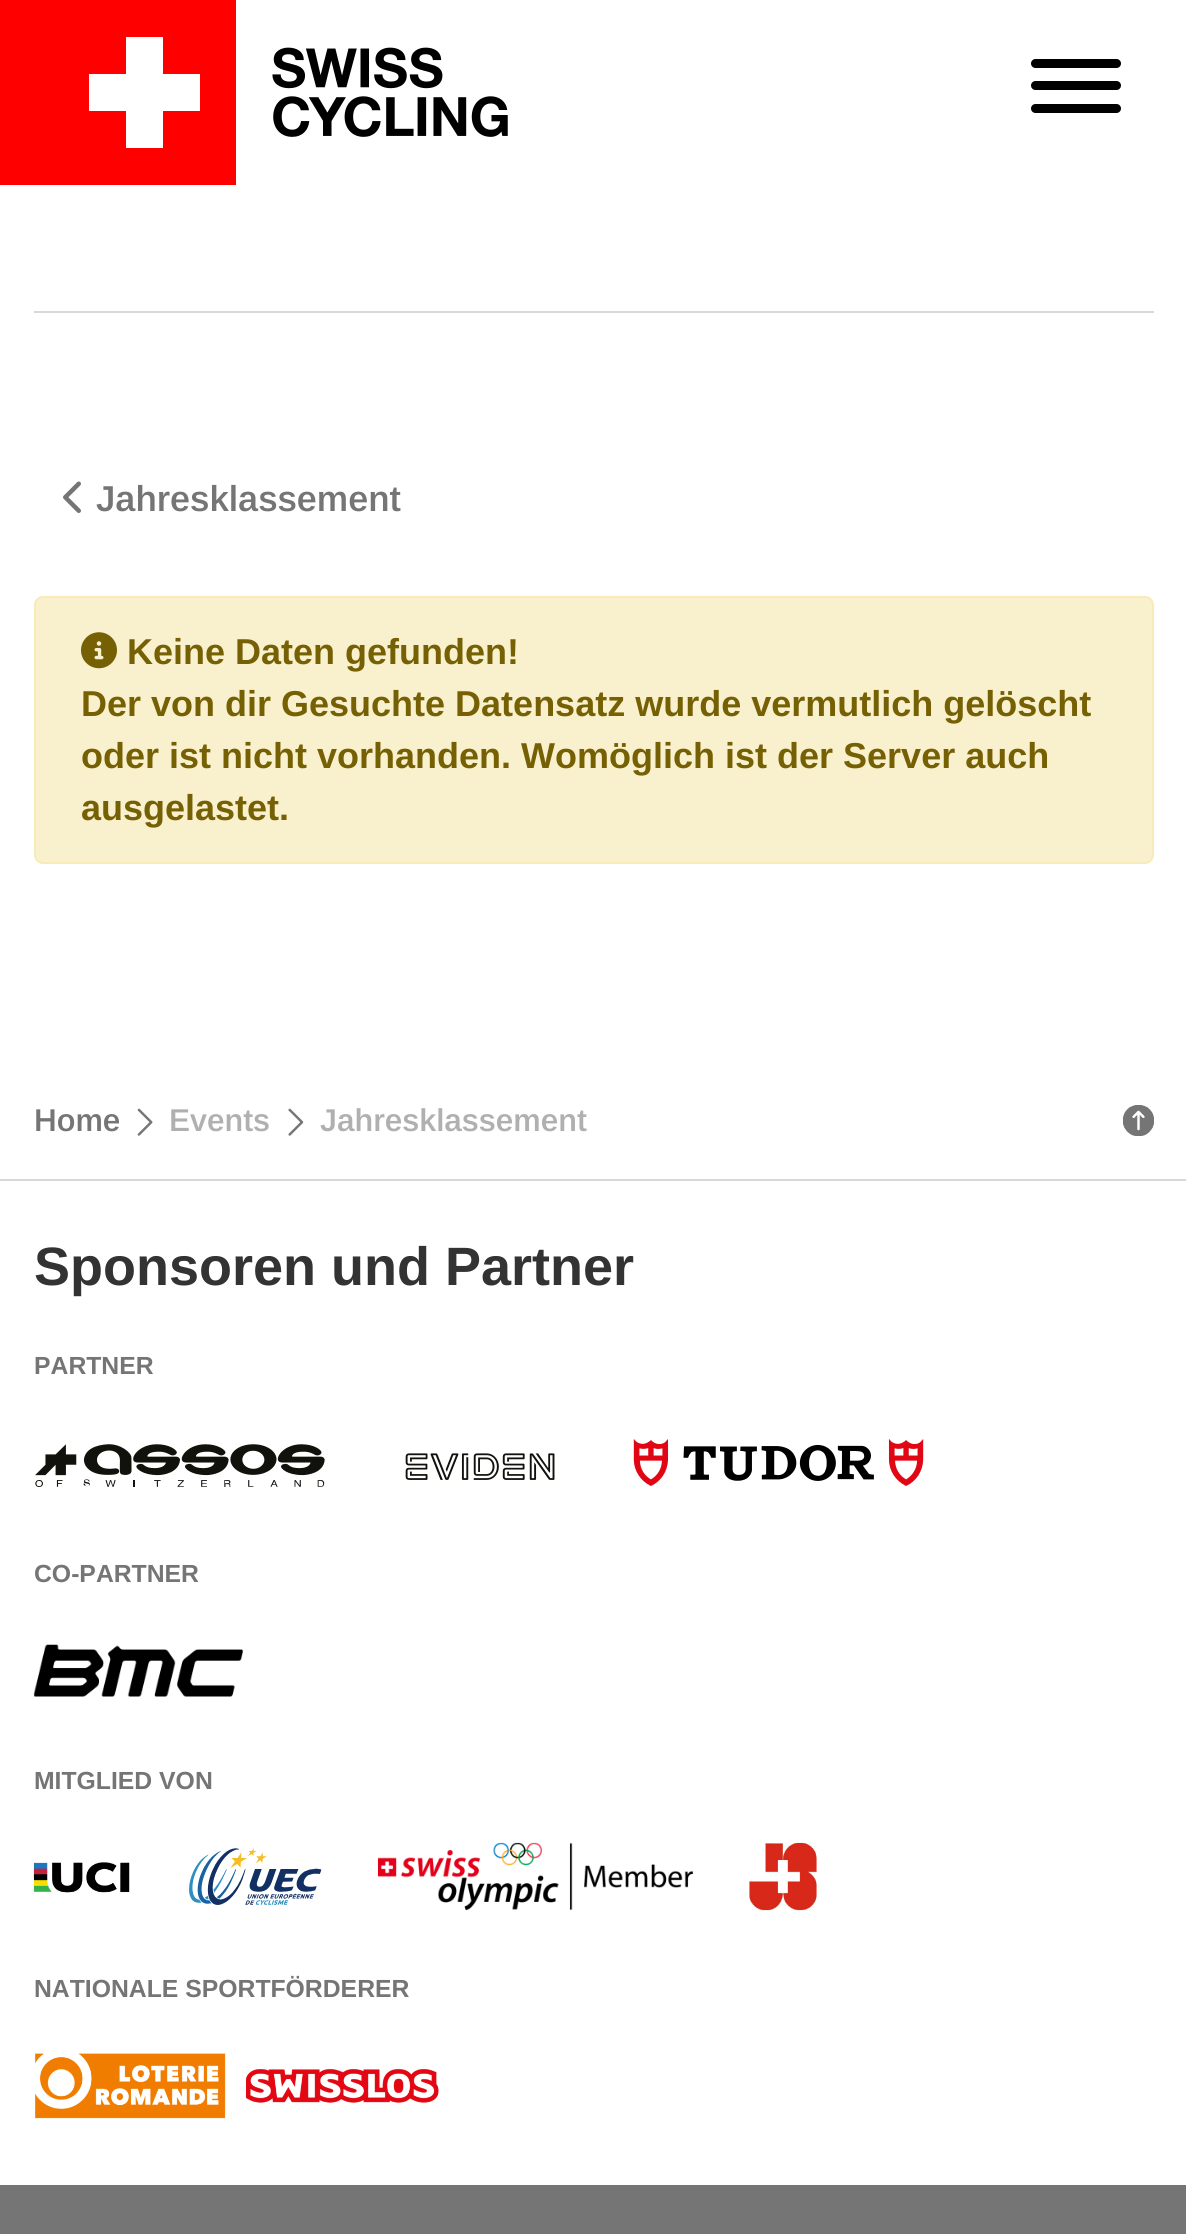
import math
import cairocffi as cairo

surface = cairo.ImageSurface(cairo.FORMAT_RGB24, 1186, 2234)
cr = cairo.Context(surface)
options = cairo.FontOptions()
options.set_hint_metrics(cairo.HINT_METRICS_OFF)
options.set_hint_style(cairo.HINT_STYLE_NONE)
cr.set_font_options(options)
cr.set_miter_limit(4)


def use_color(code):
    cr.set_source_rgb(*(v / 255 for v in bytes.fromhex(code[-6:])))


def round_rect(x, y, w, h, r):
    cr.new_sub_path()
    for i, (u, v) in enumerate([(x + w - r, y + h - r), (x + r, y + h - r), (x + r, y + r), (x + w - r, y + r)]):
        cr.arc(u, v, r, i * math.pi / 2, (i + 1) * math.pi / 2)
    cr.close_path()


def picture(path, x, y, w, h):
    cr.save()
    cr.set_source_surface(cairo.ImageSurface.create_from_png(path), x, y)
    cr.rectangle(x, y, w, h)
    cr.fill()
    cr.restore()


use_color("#ffffff")
cr.paint()
use_color("#ff0000")
cr.rectangle(0, 0, 236, 185)
cr.fill()
use_color("#ffffff")
cr.new_path()
cr.move_to(163, 74)
cr.line_to(163, 37)
cr.line_to(126, 37)
cr.line_to(126, 74)
cr.line_to(89, 74)
cr.line_to(89, 111)
cr.line_to(126, 111)
cr.line_to(126, 148)
cr.line_to(163, 148)
cr.line_to(163, 111)
cr.line_to(200, 111)
cr.line_to(200, 74)
cr.close_path()
cr.fill()
picture("img1.png", 272, 47, 236, 90)
use_color("#000000")
round_rect(1031, 81, 90, 9, 4.5)
cr.fill()
round_rect(1031, 59, 90, 9, 4.5)
cr.fill()
round_rect(1031, 104, 90, 9, 4.5)
cr.fill()
use_color("#d8d8d8")
cr.rectangle(34, 311, 1120, 2)
cr.fill()
picture("img2.png", 63, 481, 18, 32)
cr.select_font_face("Arimo SemiBold")
cr.set_font_size(36)
use_color("#757575")
cr.move_to(96, 511)
cr.show_text("Jahresklassement")
use_color("#f9f1cd")
round_rect(35, 597, 1118, 266, 8)
cr.fill_preserve()
use_color("#f7ebba")
cr.stroke()
picture("img3.png", 81, 632, 36, 37)
cr.select_font_face("Arimo", cairo.FONT_SLANT_NORMAL, cairo.FONT_WEIGHT_BOLD)
use_color("#766004")
cr.move_to(127, 664)
cr.show_text("Keine Daten gefunden!")
cr.move_to(81, 716)
cr.show_text("Der von dir Gesuchte Datensatz wurde vermutlich gelöscht")
cr.move_to(81, 768)
cr.show_text("oder ist nicht vorhanden. Womöglich ist der Server auch")
cr.move_to(81, 820)
cr.show_text("ausgelastet.")
cr.select_font_face("Arimo SemiBold")
cr.set_font_size(31.5)
use_color("#757575")
cr.move_to(34, 1131)
cr.show_text("Home")
picture("img4.png", 137, 1108, 16, 28)
use_color("#b0b0b0")
cr.move_to(169, 1131)
cr.show_text("Events")
picture("img5.png", 288, 1108, 16, 28)
cr.move_to(320, 1131)
cr.show_text("Jahresklassement")
picture("img6.png", 1123, 1105, 31, 31)
use_color("#d8d8d8")
cr.rectangle(0, 1179, 1186, 2)
cr.fill()
cr.select_font_face("Arimo", cairo.FONT_SLANT_NORMAL, cairo.FONT_WEIGHT_BOLD)
cr.set_font_size(54)
use_color("#333333")
cr.move_to(34, 1285)
cr.show_text("Sponsoren und Partner")
cr.set_font_size(24.75)
use_color("#757575")
cr.move_to(34, 1374)
cr.show_text("PARTNER")
picture("img7.png", 35, 1444, 290, 43)
picture("img8.png", 405, 1453, 150, 27)
picture("img9.png", 633, 1439, 291, 47)
cr.move_to(34, 1582)
cr.show_text("CO-PARTNER")
picture("img10.png", 33, 1644, 210, 53)
cr.move_to(34, 1789)
cr.show_text("MITGLIED VON")
picture("img11.png", 33, 1862, 97, 31)
picture("img12.png", 189, 1848, 133, 57)
picture("img13.png", 378, 1842, 315, 69)
picture("img14.png", 749, 1842, 68, 69)
cr.move_to(34, 1997)
cr.show_text("NATIONALE SPORTFÖRDERER")
picture("img15.png", 35, 2053, 404, 66)
cr.rectangle(0, 2185, 1186, 49)
cr.fill()
surface.write_to_png("result.png")
